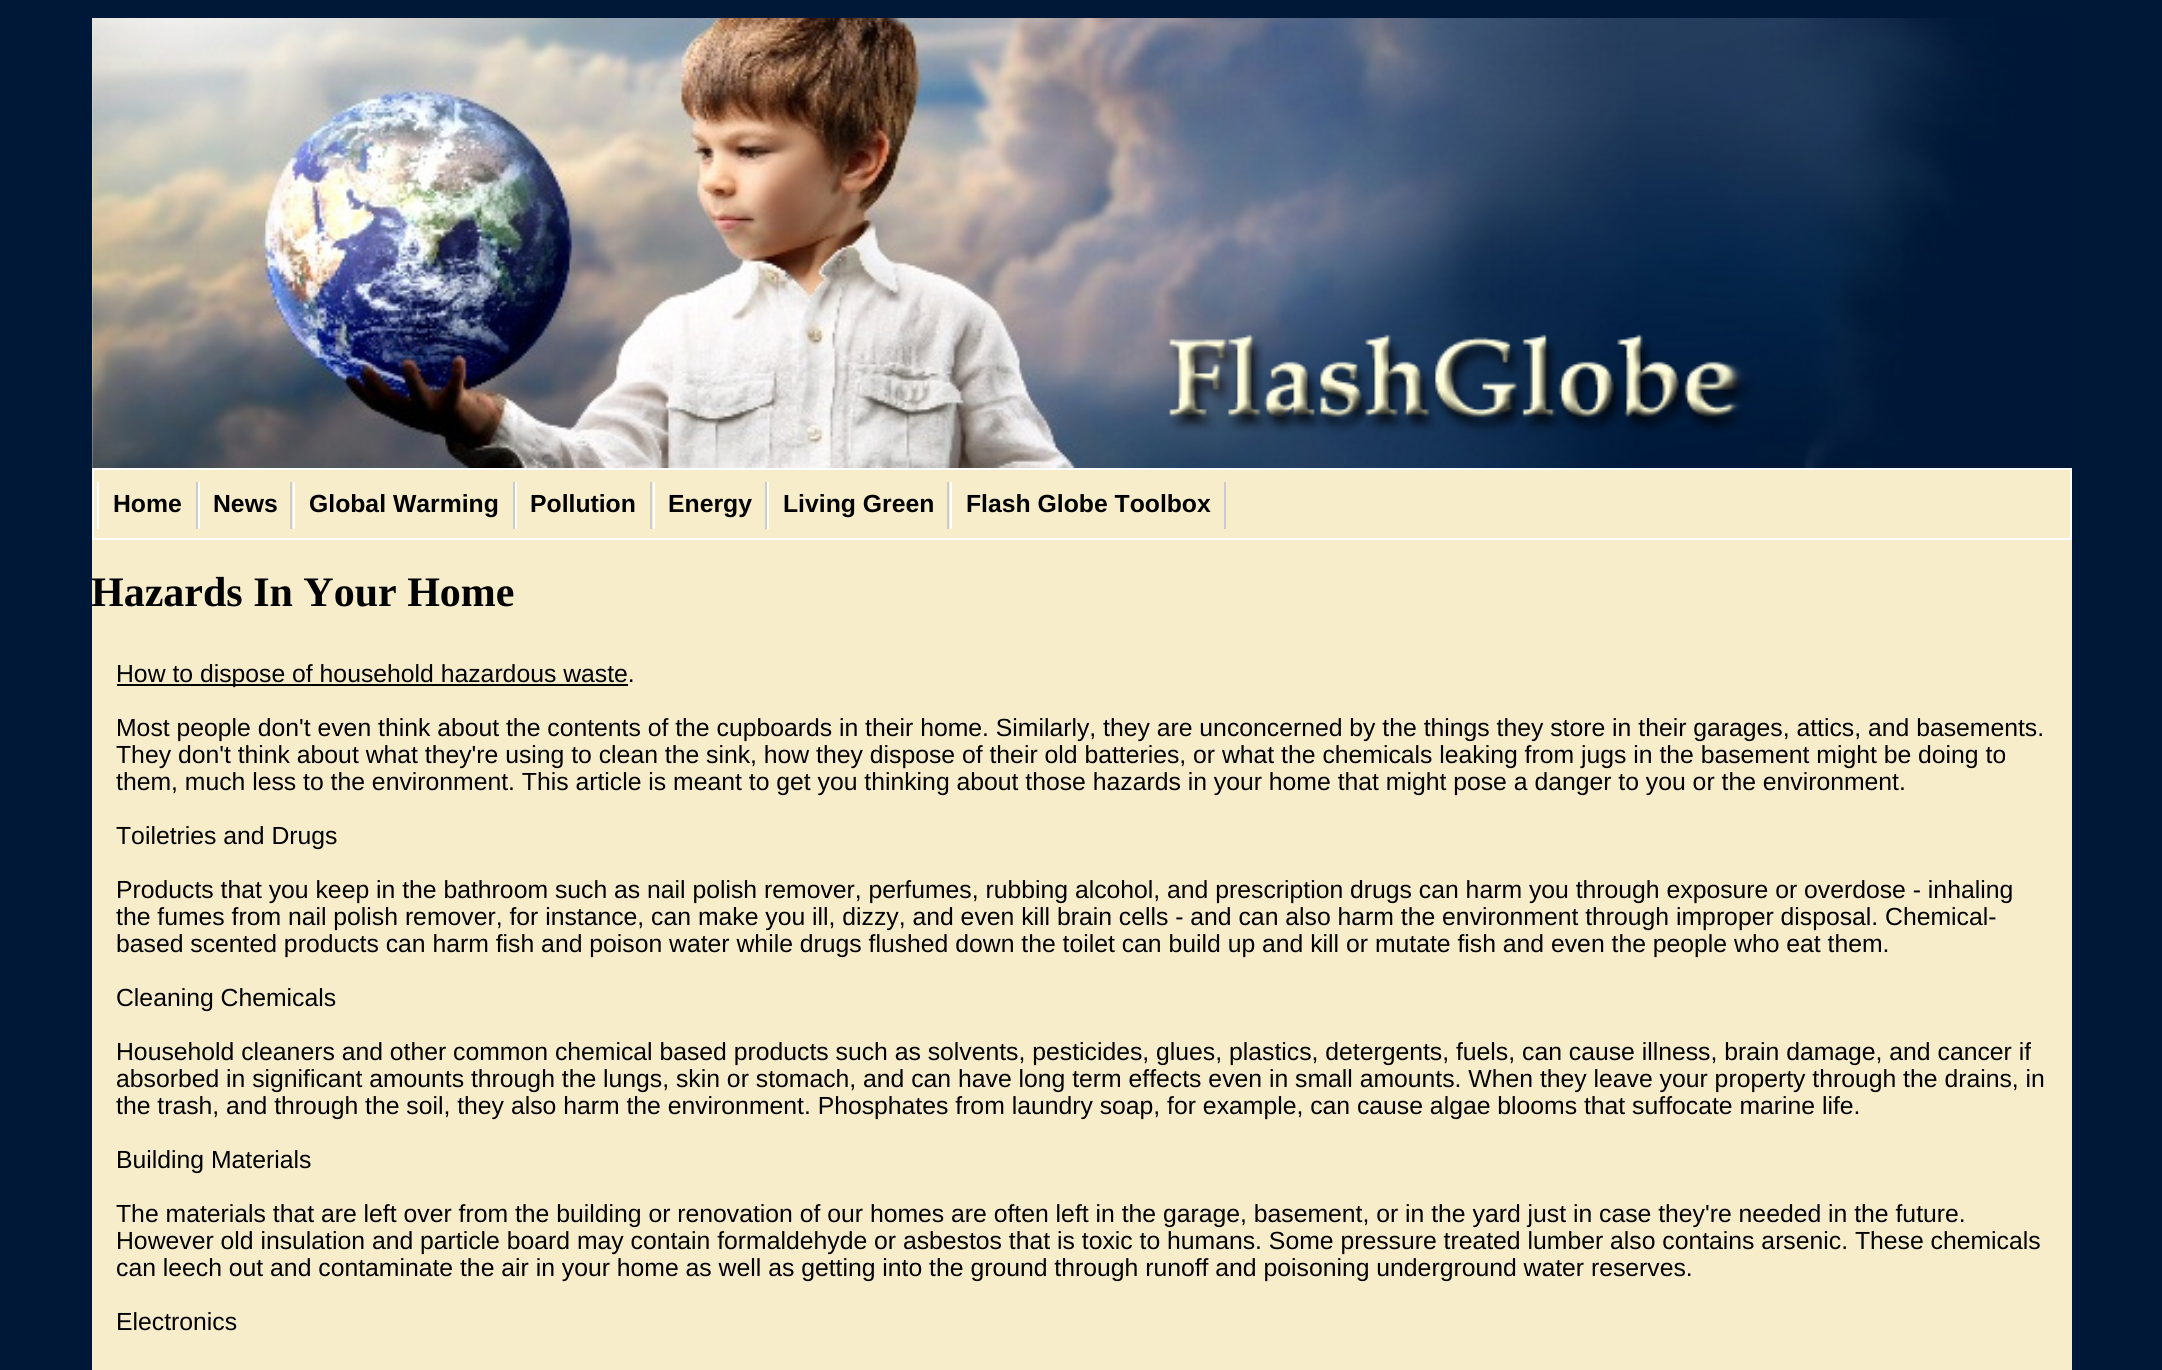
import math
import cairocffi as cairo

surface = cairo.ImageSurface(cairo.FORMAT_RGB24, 2162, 1370)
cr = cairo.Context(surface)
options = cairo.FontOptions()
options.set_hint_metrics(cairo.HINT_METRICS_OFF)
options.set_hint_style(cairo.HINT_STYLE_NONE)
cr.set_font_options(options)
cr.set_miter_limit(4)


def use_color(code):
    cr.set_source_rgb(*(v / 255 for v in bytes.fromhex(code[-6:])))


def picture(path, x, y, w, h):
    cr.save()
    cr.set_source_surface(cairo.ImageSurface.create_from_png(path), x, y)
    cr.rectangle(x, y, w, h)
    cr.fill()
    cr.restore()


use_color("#001837")
cr.paint()
use_color("#f7edcb")
cr.rectangle(92, 18, 1980, 1352)
cr.fill()
picture("img1.png", 92, 18, 1980, 450)
cr.rectangle(93, 469, 1978, 70)
use_color("#ffffff")
cr.stroke()
use_color("#cccccc")
cr.rectangle(196, 482, 2, 47)
cr.fill()
use_color("#ffffff")
cr.rectangle(97, 482, 2, 47)
cr.fill()
cr.select_font_face("Liberation Sans", cairo.FONT_SLANT_NORMAL, cairo.FONT_WEIGHT_BOLD)
cr.set_font_size(24.75)
use_color("#000000")
cr.move_to(113, 512)
cr.show_text("Home")
use_color("#cccccc")
cr.rectangle(290, 482, 2, 47)
cr.fill()
use_color("#ffffff")
cr.rectangle(198, 482, 2, 47)
cr.fill()
use_color("#000000")
cr.move_to(213, 512)
cr.show_text("News")
use_color("#cccccc")
cr.rectangle(513, 482, 2, 47)
cr.fill()
use_color("#ffffff")
cr.rectangle(293, 482, 2, 47)
cr.fill()
use_color("#000000")
cr.move_to(309, 512)
cr.show_text("Global Warming")
use_color("#cccccc")
cr.rectangle(650, 482, 2, 47)
cr.fill()
use_color("#ffffff")
cr.rectangle(515, 482, 2, 47)
cr.fill()
use_color("#000000")
cr.move_to(530, 512)
cr.show_text("Pollution")
use_color("#cccccc")
cr.rectangle(765, 482, 2, 47)
cr.fill()
use_color("#ffffff")
cr.rectangle(653, 482, 2, 47)
cr.fill()
use_color("#000000")
cr.move_to(668, 512)
cr.show_text("Energy")
use_color("#cccccc")
cr.rectangle(947, 482, 2, 47)
cr.fill()
use_color("#ffffff")
cr.rectangle(767, 482, 2, 47)
cr.fill()
use_color("#000000")
cr.move_to(783, 512)
cr.show_text("Living Green")
use_color("#cccccc")
cr.rectangle(1224, 482, 2, 47)
cr.fill()
use_color("#ffffff")
cr.rectangle(950, 482, 2, 47)
cr.fill()
use_color("#000000")
cr.move_to(966, 512)
cr.show_text("Flash Globe Toolbox")
cr.select_font_face("Liberation Serif", cairo.FONT_SLANT_NORMAL, cairo.FONT_WEIGHT_BOLD)
cr.set_font_size(42)
cr.move_to(91, 606)
cr.show_text("Hazards In Your Home")
cr.rectangle(117, 684, 511, 2)
cr.fill()
cr.select_font_face("Liberation Sans")
cr.set_font_size(24.75)
cr.move_to(116, 682)
cr.show_text("How to dispose of household hazardous waste.")
cr.move_to(116, 736)
cr.show_text("Most people don't even think about the contents of the cupboards in their home. Similarly, they are unconcerned by the things they store in their garages, attics, and basements.")
cr.move_to(116, 763)
cr.show_text("They don't think about what they're using to clean the sink, how they dispose of their old batteries, or what the chemicals leaking from jugs in the basement might be doing to")
cr.move_to(116, 790)
cr.show_text("them, much less to the environment. This article is meant to get you thinking about those hazards in your home that might pose a danger to you or the environment.")
cr.move_to(116, 844)
cr.show_text("Toiletries and Drugs")
cr.move_to(116, 898)
cr.show_text("Products that you keep in the bathroom such as nail polish remover, perfumes, rubbing alcohol, and prescription drugs can harm you through exposure or overdose - inhaling")
cr.move_to(116, 925)
cr.show_text("the fumes from nail polish remover, for instance, can make you ill, dizzy, and even kill brain cells - and can also harm the environment through improper disposal. Chemical-")
cr.move_to(116, 952)
cr.show_text("based scented products can harm fish and poison water while drugs flushed down the toilet can build up and kill or mutate fish and even the people who eat them.")
cr.move_to(116, 1006)
cr.show_text("Cleaning Chemicals")
cr.move_to(116, 1060)
cr.show_text("Household cleaners and other common chemical based products such as solvents, pesticides, glues, plastics, detergents, fuels, can cause illness, brain damage, and cancer if")
cr.move_to(116, 1087)
cr.show_text("absorbed in significant amounts through the lungs, skin or stomach, and can have long term effects even in small amounts. When they leave your property through the drains, in")
cr.move_to(116, 1114)
cr.show_text("the trash, and through the soil, they also harm the environment. Phosphates from laundry soap, for example, can cause algae blooms that suffocate marine life.")
cr.move_to(116, 1168)
cr.show_text("Building Materials")
cr.move_to(116, 1222)
cr.show_text("The materials that are left over from the building or renovation of our homes are often left in the garage, basement, or in the yard just in case they're needed in the future.")
cr.move_to(116, 1249)
cr.show_text("However old insulation and particle board may contain formaldehyde or asbestos that is toxic to humans. Some pressure treated lumber also contains arsenic. These chemicals")
cr.move_to(116, 1276)
cr.show_text("can leech out and contaminate the air in your home as well as getting into the ground through runoff and poisoning underground water reserves.")
cr.move_to(116, 1330)
cr.show_text("Electronics")
surface.write_to_png("result.png")
